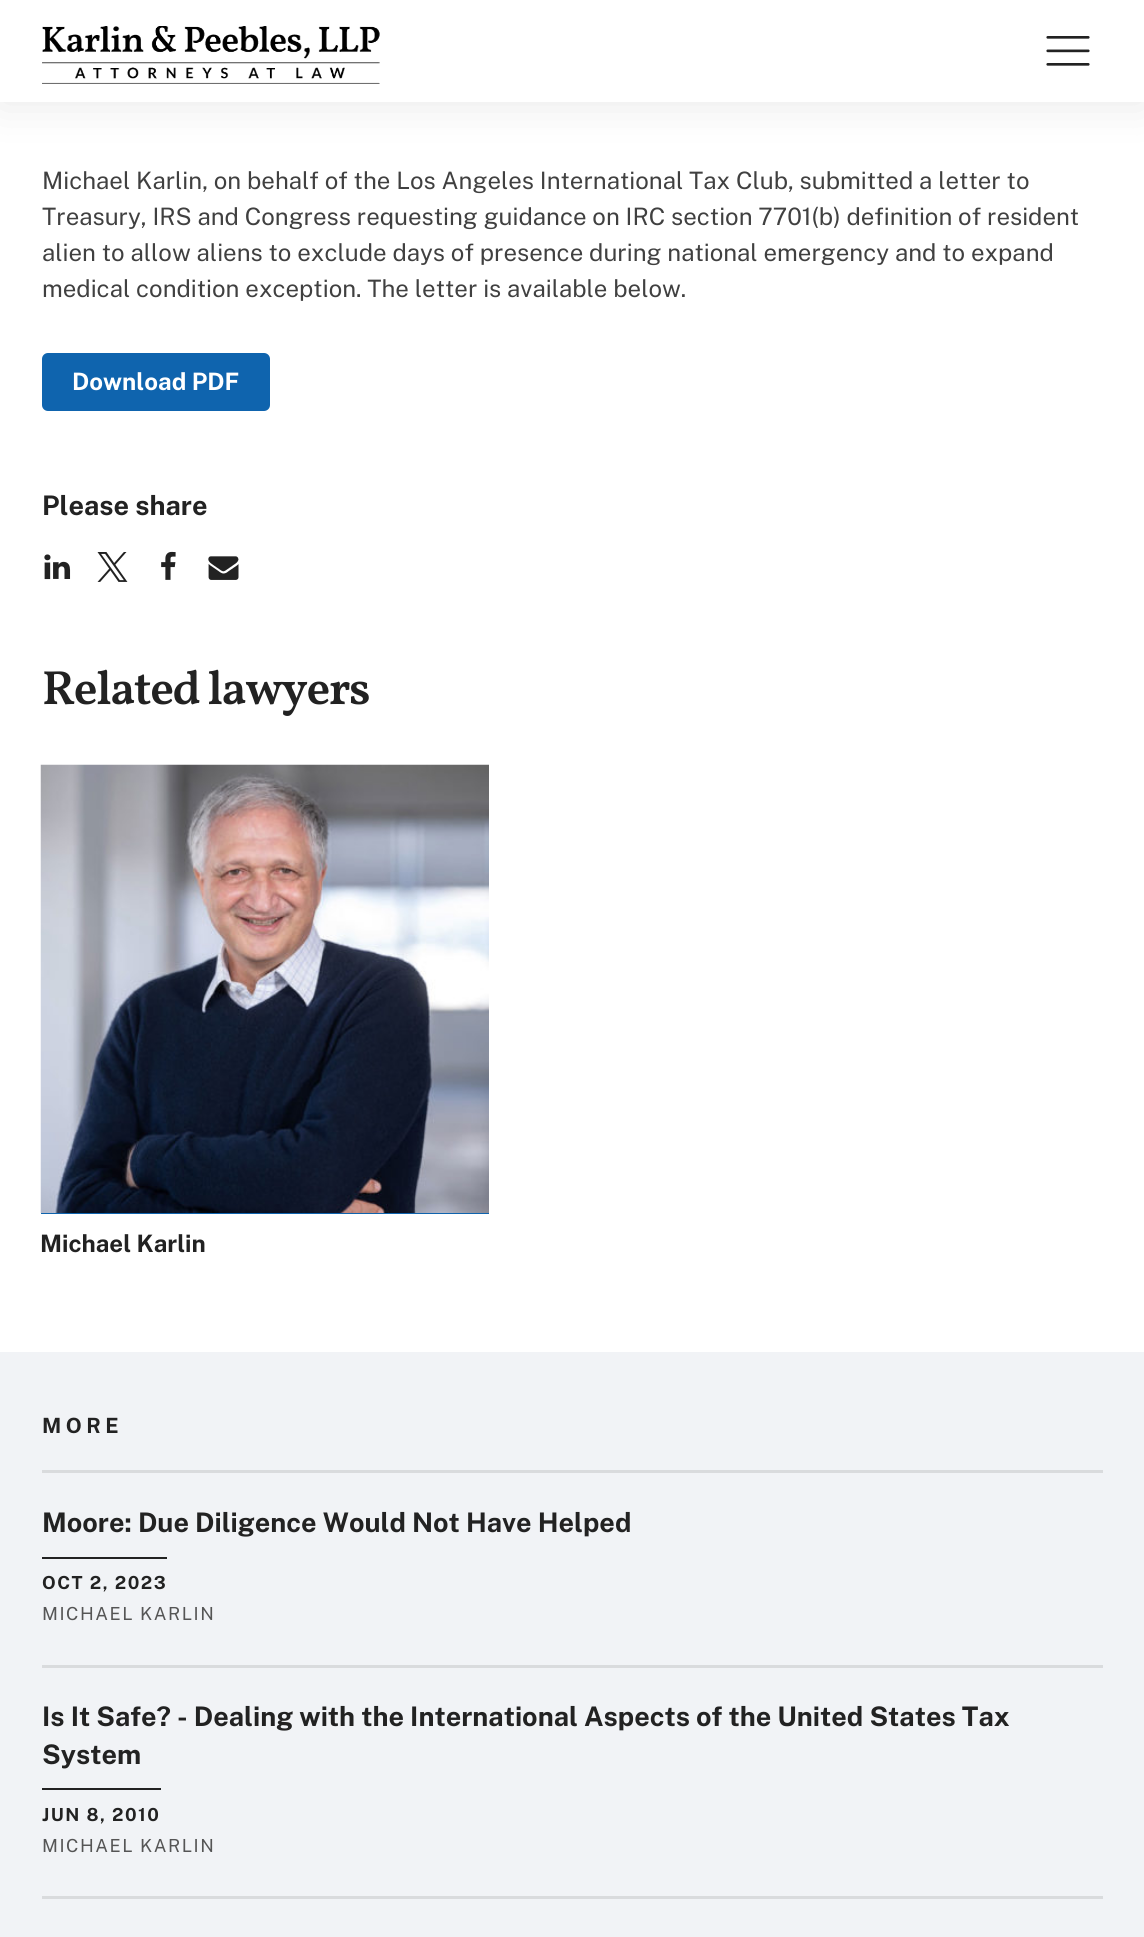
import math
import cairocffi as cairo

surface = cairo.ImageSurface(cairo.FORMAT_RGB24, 1144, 1937)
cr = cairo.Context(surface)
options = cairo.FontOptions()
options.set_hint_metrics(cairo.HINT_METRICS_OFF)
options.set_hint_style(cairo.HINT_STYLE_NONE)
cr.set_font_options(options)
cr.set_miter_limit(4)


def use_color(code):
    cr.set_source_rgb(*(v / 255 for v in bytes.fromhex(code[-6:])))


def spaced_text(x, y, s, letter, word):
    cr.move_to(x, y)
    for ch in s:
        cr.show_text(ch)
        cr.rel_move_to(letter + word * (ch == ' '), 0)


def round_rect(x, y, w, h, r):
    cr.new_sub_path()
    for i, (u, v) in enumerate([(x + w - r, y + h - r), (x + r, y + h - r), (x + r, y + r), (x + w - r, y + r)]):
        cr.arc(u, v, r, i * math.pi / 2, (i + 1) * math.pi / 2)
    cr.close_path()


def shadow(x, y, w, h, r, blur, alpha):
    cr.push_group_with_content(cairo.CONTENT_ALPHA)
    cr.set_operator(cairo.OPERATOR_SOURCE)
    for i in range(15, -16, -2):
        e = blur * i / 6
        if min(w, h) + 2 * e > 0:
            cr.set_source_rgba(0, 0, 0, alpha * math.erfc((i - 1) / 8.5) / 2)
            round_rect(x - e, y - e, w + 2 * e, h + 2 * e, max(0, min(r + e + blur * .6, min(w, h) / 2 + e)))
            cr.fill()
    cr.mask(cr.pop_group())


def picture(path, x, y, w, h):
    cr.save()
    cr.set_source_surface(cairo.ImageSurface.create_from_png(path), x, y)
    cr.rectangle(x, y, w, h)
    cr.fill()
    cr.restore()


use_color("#ffffff")
cr.paint()
use_color("#000000")
shadow(0, 0, 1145, 102, 0, 22.5, 0.1)
use_color("#ffffff")
cr.rectangle(0, 0, 1144, 102)
cr.fill()
picture("img1.png", 42, 26, 338, 58)
picture("img2.png", 1046, 36, 44, 30)
cr.select_font_face("Public Sans")
cr.set_font_size(24)
use_color("#404040")
cr.move_to(42, 189)
cr.show_text("Michael Karlin, on behalf of the Los Angeles International Tax Club, submitted a letter to")
cr.move_to(42, 225)
cr.show_text("Treasury, IRS and Congress requesting guidance on IRC section 7701(b) definition of resident")
cr.move_to(42, 261)
cr.show_text("alien to allow aliens to exclude days of presence during national emergency and to expand")
cr.move_to(42, 297)
cr.show_text("medical condition exception. The letter is available below.")
use_color("#0f64ae")
round_rect(42, 353, 228, 58, 6)
cr.fill()
cr.select_font_face("Public Sans", cairo.FONT_SLANT_NORMAL, cairo.FONT_WEIGHT_BOLD)
use_color("#ffffff")
cr.move_to(72, 390)
cr.show_text("Download PDF")
cr.set_font_size(27)
use_color("#222222")
cr.move_to(42, 515)
cr.show_text("Please share")
picture("img3.png", 44, 554, 27, 26)
picture("img4.png", 97, 552, 31, 30)
picture("img5.png", 161, 551, 15, 29)
picture("img6.png", 208, 556, 31, 24)
cr.select_font_face("Vollkorn SemiBold")
cr.set_font_size(48)
spaced_text(42, 704, "Related lawyers", -1.5, 0)
use_color("#0f64ae")
cr.rectangle(41, 1213, 448, 1)
cr.fill()
picture("img7.png", 40, 764, 449, 449)
cr.select_font_face("Public Sans", cairo.FONT_SLANT_NORMAL, cairo.FONT_WEIGHT_BOLD)
cr.set_font_size(24)
use_color("#222222")
cr.move_to(40, 1252)
cr.show_text("Michael Karlin")
use_color("#f1f3f6")
cr.rectangle(0, 1352, 1144, 585)
cr.fill()
cr.set_font_size(21)
use_color("#222222")
spaced_text(42, 1433, "MORE", 4.5, 0)
use_color("#d9dbdd")
cr.rectangle(42, 1470, 1061, 3)
cr.fill()
cr.set_font_size(27)
use_color("#222222")
cr.move_to(42, 1532)
cr.show_text("Moore: Due Diligence Would Not Have Helped")
cr.rectangle(42, 1557, 125, 2)
cr.fill()
cr.set_font_size(18)
spaced_text(42, 1589, "OCT 2, 2023", 1.5, 0)
cr.select_font_face("Public Sans")
use_color("#555555")
spaced_text(42, 1620, "MICHAEL KARLIN", 1.5, 0)
use_color("#d9dbdd")
cr.rectangle(42, 1665, 1061, 3)
cr.fill()
cr.select_font_face("Public Sans", cairo.FONT_SLANT_NORMAL, cairo.FONT_WEIGHT_BOLD)
cr.set_font_size(27)
use_color("#222222")
cr.move_to(42, 1726)
cr.show_text("Is It Safe? - Dealing with the International Aspects of the United States Tax")
cr.move_to(42, 1764)
cr.show_text("System")
cr.rectangle(42, 1788, 119, 2)
cr.fill()
cr.set_font_size(18)
spaced_text(42, 1821, "JUN 8, 2010", 1.5, 0)
cr.select_font_face("Public Sans")
use_color("#555555")
spaced_text(42, 1852, "MICHAEL KARLIN", 1.5, 0)
use_color("#d9dbdd")
cr.rectangle(42, 1896, 1061, 3)
cr.fill()
surface.write_to_png("result.png")
